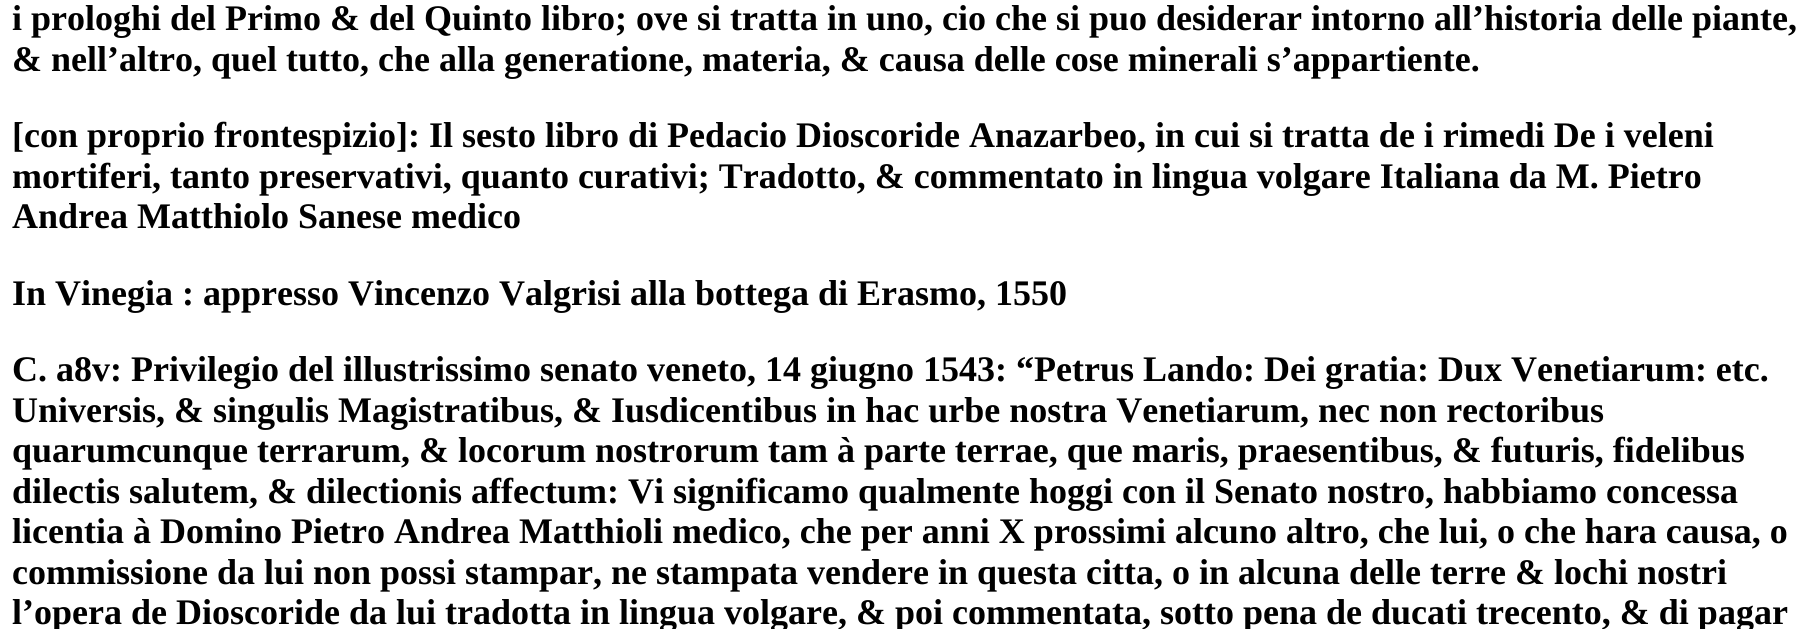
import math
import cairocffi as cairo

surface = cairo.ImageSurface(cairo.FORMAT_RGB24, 1813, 629)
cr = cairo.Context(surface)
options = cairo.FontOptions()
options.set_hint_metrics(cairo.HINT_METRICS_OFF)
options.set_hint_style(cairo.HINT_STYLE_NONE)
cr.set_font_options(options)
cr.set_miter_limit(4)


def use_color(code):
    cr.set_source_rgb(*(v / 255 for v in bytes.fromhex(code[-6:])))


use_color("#ffffff")
cr.paint()
cr.select_font_face("Liberation Serif", cairo.FONT_SLANT_NORMAL, cairo.FONT_WEIGHT_BOLD)
cr.set_font_size(36)
use_color("#000000")
cr.move_to(12, 30)
cr.show_text("i prologhi del Primo & del Quinto libro; ove si tratta in uno, cio che si puo desiderar intorno all’historia delle piante,")
cr.move_to(12, 71)
cr.show_text("& nell’altro, quel tutto, che alla generatione, materia, & causa delle cose minerali s’appartiente.")
cr.move_to(12, 147)
cr.show_text("[con proprio frontespizio]: Il sesto libro di Pedacio Dioscoride Anazarbeo, in cui si tratta de i rimedi De i veleni")
cr.move_to(12, 188)
cr.show_text("mortiferi, tanto preservativi, quanto curativi; Tradotto, & commentato in lingua volgare Italiana da M. Pietro")
cr.move_to(12, 228)
cr.show_text("Andrea Matthiolo Sanese medico")
cr.move_to(12, 305)
cr.show_text("In Vinegia : appresso Vincenzo Valgrisi alla bottega di Erasmo, 1550")
cr.move_to(12, 381)
cr.show_text("C. a8v: Privilegio del illustrissimo senato veneto, 14 giugno 1543: “Petrus Lando: Dei gratia: Dux Venetiarum: etc.")
cr.move_to(12, 422)
cr.show_text("Universis, & singulis Magistratibus, & Iusdicentibus in hac urbe nostra Venetiarum, nec non rectoribus")
cr.move_to(12, 462)
cr.show_text("quarumcunque terrarum, & locorum nostrorum tam à parte terrae, que maris, praesentibus, & futuris, fidelibus")
cr.move_to(12, 503)
cr.show_text("dilectis salutem, & dilectionis affectum: Vi significamo qualmente hoggi con il Senato nostro, habbiamo concessa")
cr.move_to(12, 543)
cr.show_text("licentia à Domino Pietro Andrea Matthioli medico, che per anni X prossimi alcuno altro, che lui, o che hara causa, o")
cr.move_to(12, 584)
cr.show_text("commissione da lui non possi stampar, ne stampata vendere in questa citta, o in alcuna delle terre & lochi nostri")
cr.move_to(12, 624)
cr.show_text("l’opera de Dioscoride da lui tradotta in lingua volgare, & poi commentata, sotto pena de ducati trecento, & di pagar")
surface.write_to_png("result.png")
